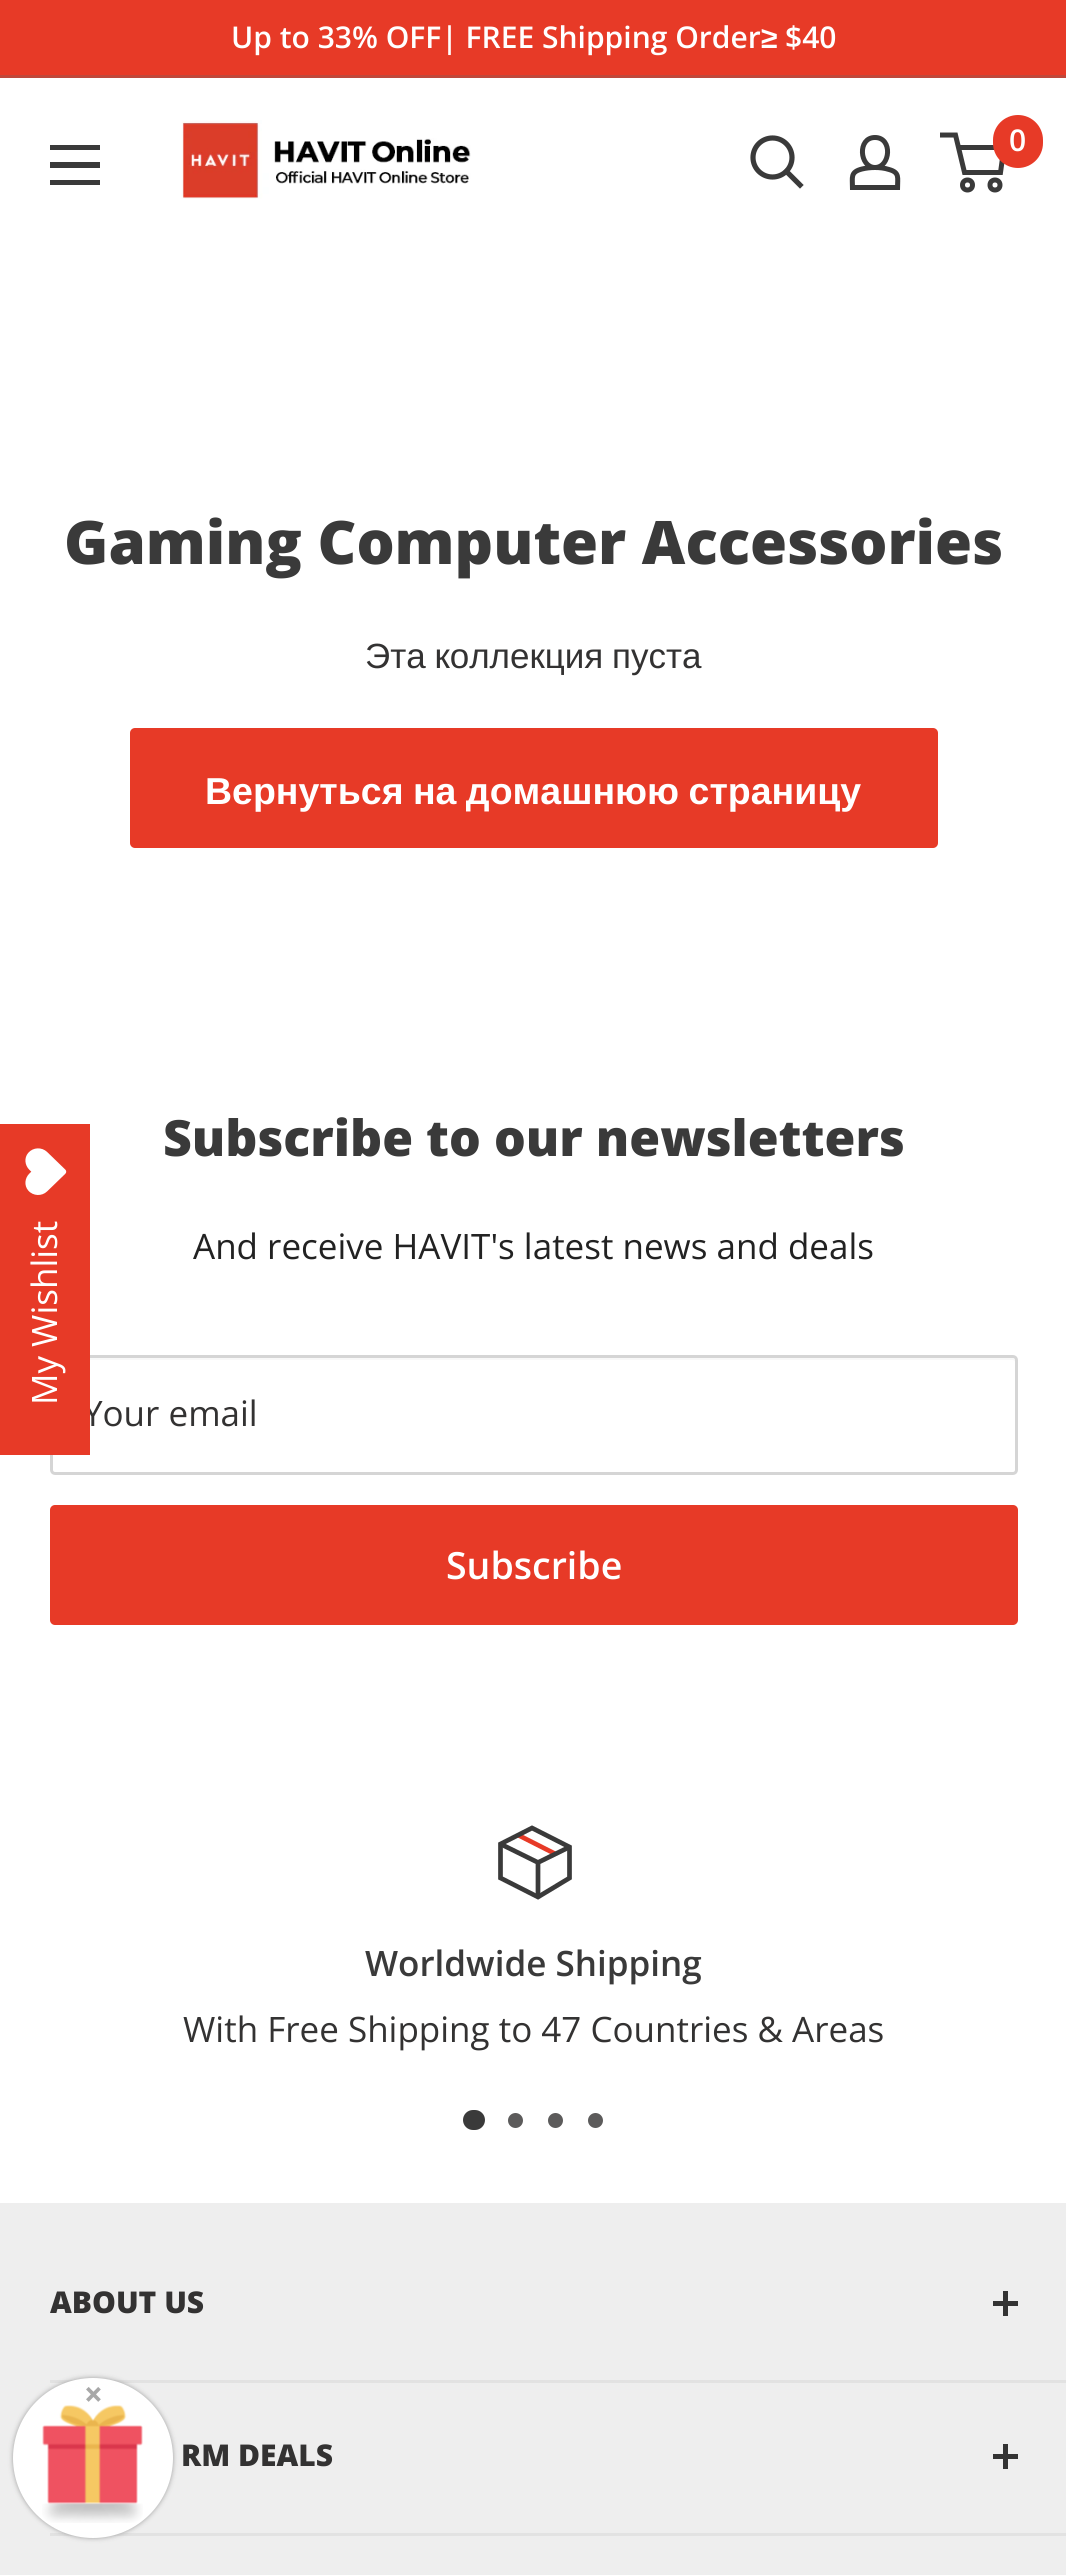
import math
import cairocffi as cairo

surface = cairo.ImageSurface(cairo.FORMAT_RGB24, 1066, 2575)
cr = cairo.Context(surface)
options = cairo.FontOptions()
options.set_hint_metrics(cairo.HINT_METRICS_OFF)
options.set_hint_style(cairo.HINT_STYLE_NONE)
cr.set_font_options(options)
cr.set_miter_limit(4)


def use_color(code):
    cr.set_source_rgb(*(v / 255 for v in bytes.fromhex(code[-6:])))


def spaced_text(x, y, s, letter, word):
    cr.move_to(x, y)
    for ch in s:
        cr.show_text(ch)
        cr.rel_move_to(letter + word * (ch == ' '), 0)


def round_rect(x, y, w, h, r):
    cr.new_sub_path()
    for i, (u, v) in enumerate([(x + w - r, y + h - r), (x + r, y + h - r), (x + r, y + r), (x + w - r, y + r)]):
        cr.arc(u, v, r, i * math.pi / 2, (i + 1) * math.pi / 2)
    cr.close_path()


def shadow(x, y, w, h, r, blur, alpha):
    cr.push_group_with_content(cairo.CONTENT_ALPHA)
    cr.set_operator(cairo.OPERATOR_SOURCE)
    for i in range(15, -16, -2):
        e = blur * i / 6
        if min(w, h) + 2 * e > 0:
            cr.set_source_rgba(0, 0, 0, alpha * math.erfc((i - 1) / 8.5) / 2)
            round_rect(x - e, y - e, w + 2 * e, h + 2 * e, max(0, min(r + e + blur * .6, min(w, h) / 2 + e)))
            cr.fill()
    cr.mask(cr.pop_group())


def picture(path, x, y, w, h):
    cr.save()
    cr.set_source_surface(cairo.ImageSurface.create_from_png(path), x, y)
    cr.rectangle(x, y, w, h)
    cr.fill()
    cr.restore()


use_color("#ffffff")
cr.paint()
use_color("#e73a27")
cr.rectangle(0, 0, 1066, 75)
cr.fill()
use_color("#c0473a")
cr.rectangle(0, 75, 1066, 3)
cr.fill()
cr.select_font_face("Open Sans SemiBold")
cr.set_font_size(30)
use_color("#ffffff")
cr.move_to(231, 48)
cr.show_text("Up to 33% OFF| FREE Shipping Order")
cr.select_font_face("Liberation Sans", cairo.FONT_SLANT_NORMAL, cairo.FONT_WEIGHT_BOLD)
cr.move_to(761, 48)
cr.show_text("≥")
cr.select_font_face("Open Sans SemiBold")
cr.move_to(785, 48)
cr.show_text("$40")
picture("img1.png", 181, 120, 290, 79)
cr.new_path()
cr.move_to(800, 185)
cr.line_to(786.5, 171.5)
use_color("#3a3a3a")
cr.set_line_width(5.2)
cr.set_line_cap(cairo.LINE_CAP_SQUARE)
cr.stroke()
cr.arc(772.5, 157.5, 19.5, 0, 2 * math.pi)
cr.set_line_cap(cairo.LINE_CAP_BUTT)
cr.stroke()
cr.new_path()
cr.move_to(875, 167.5)
cr.curve_to(879.5, 167.5, 884.5, 168, 889, 169.5)
cr.curve_to(900, 172.5, 897.5, 178, 897.5, 187.5)
cr.line_to(852.5, 187.5)
cr.curve_to(852.5, 177.5, 850, 172, 862, 169)
cr.curve_to(866, 168, 870.5, 167.5, 875, 167.5)
cr.close_path()
cr.move_to(875, 167.5)
cr.curve_to(859.5, 167.5, 857, 137.5, 875, 137.5)
cr.curve_to(893, 137.5, 890.5, 167.5, 875, 167.5)
cr.close_path()
cr.set_line_width(5)
cr.stroke()
cr.arc(967.5, 185, 5, 0, 2 * math.pi)
cr.stroke()
cr.arc(995, 185, 5, 0, 2 * math.pi)
cr.stroke()
cr.new_path()
cr.move_to(958.5, 147.5)
cr.line_to(1004, 147.5)
cr.line_to(1000.5, 172.5)
cr.line_to(964.5, 172.5)
cr.line_to(955.5, 135)
cr.line_to(940, 135)
cr.stroke()
use_color("#e73a27")
round_rect(993, 115, 50, 53, 25)
cr.fill()
use_color("#ffffff")
cr.move_to(1009, 151)
cr.show_text("0")
use_color("#3a3a3a")
cr.set_fill_rule(cairo.FILL_RULE_EVEN_ODD)
cr.new_path()
cr.move_to(50, 180)
cr.line_to(100, 180)
cr.line_to(100, 185)
cr.line_to(50, 185)
cr.close_path()
cr.move_to(50, 145)
cr.line_to(100, 145)
cr.line_to(100, 150)
cr.line_to(50, 150)
cr.close_path()
cr.move_to(50, 162)
cr.line_to(100, 162)
cr.line_to(100, 168)
cr.line_to(50, 168)
cr.close_path()
cr.fill()
cr.select_font_face("Open Sans ExtraBold")
cr.set_font_size(60)
cr.move_to(64, 564)
cr.show_text("Gaming Computer Accessories")
cr.select_font_face("Liberation Sans")
cr.set_font_size(35)
use_color("#333232")
spaced_text(365, 668, "Эта коллекция пуста", 0, -1)
use_color("#e73a27")
round_rect(130, 728, 808, 120, 5)
cr.fill()
cr.select_font_face("Liberation Sans", cairo.FONT_SLANT_NORMAL, cairo.FONT_WEIGHT_BOLD)
cr.set_font_size(37.5)
use_color("#ffffff")
spaced_text(205, 804, "Вернуться на домашнюю страницу", 0, -1)
use_color("#f8f8f8")
cr.set_fill_rule(cairo.FILL_RULE_WINDING)
cr.new_path()
cr.move_to(55, 1360)
cr.line_to(1012, 1360)
cr.curve_to(1014, 1360, 1015, 1361, 1015, 1362)
cr.line_to(1015, 1360)
cr.curve_to(1015, 1359, 1014, 1358, 1012, 1358)
cr.line_to(56, 1358)
cr.curve_to(54, 1358, 53, 1359, 53, 1360)
cr.close_path()
cr.fill()
round_rect(51.5, 1356.5, 965, 117, 3.5)
use_color("#d5d5d5")
cr.set_line_width(3)
cr.stroke()
cr.select_font_face("Open Sans")
cr.set_font_size(35)
use_color("#333232")
cr.move_to(83, 1426)
cr.show_text("Your email")
use_color("#e73a27")
cr.rectangle(0, 1124, 90, 331)
cr.fill()
picture("img2.png", 25, 1148, 42, 47)
use_color("#ffffff")
cr.save()
cr.translate(57, 1405)
cr.rotate(-90 * math.pi / 180)
cr.move_to(0, 0)
cr.show_text("My Wishlist")
cr.restore()
cr.select_font_face("Open Sans ExtraBold")
cr.set_font_size(50)
use_color("#3a3a3a")
cr.move_to(163, 1156)
cr.show_text("Subscribe to our newsletters")
cr.select_font_face("Open Sans")
cr.set_font_size(35)
use_color("#222222")
cr.move_to(193, 1259)
cr.show_text("And receive HAVIT's latest news and deals")
use_color("#e73a27")
round_rect(50, 1505, 968, 120, 5)
cr.fill()
cr.select_font_face("Open Sans SemiBold")
cr.set_font_size(37.5)
use_color("#ffffff")
cr.move_to(446, 1579)
cr.show_text("Subscribe")
cr.new_path()
cr.move_to(518, 1835)
cr.line_to(555.5, 1854)
use_color("#e73a27")
cr.set_line_width(4.7)
cr.stroke()
cr.new_path()
cr.move_to(569.5, 1847)
cr.line_to(538, 1862.5)
cr.line_to(500.5, 1844)
cr.move_to(538, 1862.5)
cr.line_to(538, 1897)
use_color("#3a3a3a")
cr.stroke()
cr.new_path()
cr.move_to(569.5, 1847)
cr.line_to(569.5, 1878)
cr.line_to(538, 1897)
cr.line_to(500.5, 1878)
cr.line_to(500.5, 1844)
cr.line_to(532, 1828)
cr.close_path()
cr.set_line_cap(cairo.LINE_CAP_SQUARE)
cr.stroke()
cr.set_font_size(35)
cr.move_to(365, 1976)
cr.show_text("Worldwide Shipping")
cr.select_font_face("Open Sans")
use_color("#333232")
cr.move_to(183, 2042)
cr.show_text("With Free Shipping to 47 Countries & Areas")
use_color("#3a3a3a")
round_rect(463, 2110, 22, 20, 10)
cr.fill()
use_color("#5c5b5b")
cr.arc(515.5, 2120.5, 7.5, 0, 2 * math.pi)
cr.fill()
cr.arc(555.5, 2120.5, 7.5, 0, 2 * math.pi)
cr.fill()
cr.arc(595.5, 2120.5, 7.5, 0, 2 * math.pi)
cr.fill()
use_color("#eeeeee")
cr.rectangle(0, 2203, 1066, 372)
cr.fill()
use_color("#e2e2e2")
cr.rectangle(50, 2380, 1016, 3)
cr.fill()
cr.select_font_face("Open Sans ExtraBold")
cr.set_font_size(30)
use_color("#333232")
cr.move_to(50, 2313)
cr.show_text("ABOUT US")
use_color("#333333")
cr.rectangle(1003, 2291, 5, 25)
cr.fill()
cr.rectangle(993, 2301, 25, 5)
cr.fill()
use_color("#e2e2e2")
cr.rectangle(50, 2533, 1016, 3)
cr.fill()
use_color("#333232")
cr.move_to(181, 2466)
cr.show_text("RM DEALS")
use_color("#333333")
cr.rectangle(1003, 2444, 5, 25)
cr.fill()
cr.rectangle(993, 2454, 25, 5)
cr.fill()
use_color("#9d9d9d")
shadow(13, 2378, 160, 160, 80, 2.5, 1)
use_color("#ffffff")
cr.arc(93, 2458, 80, 0, 2 * math.pi)
cr.fill()
picture("img3.png", 42, 2405, 101, 118)
cr.select_font_face("Roboto", cairo.FONT_SLANT_NORMAL, cairo.FONT_WEIGHT_BOLD)
cr.set_font_size(32)
use_color("#a8a8a8")
cr.move_to(85, 2405)
cr.show_text("×")
surface.write_to_png("result.png")
